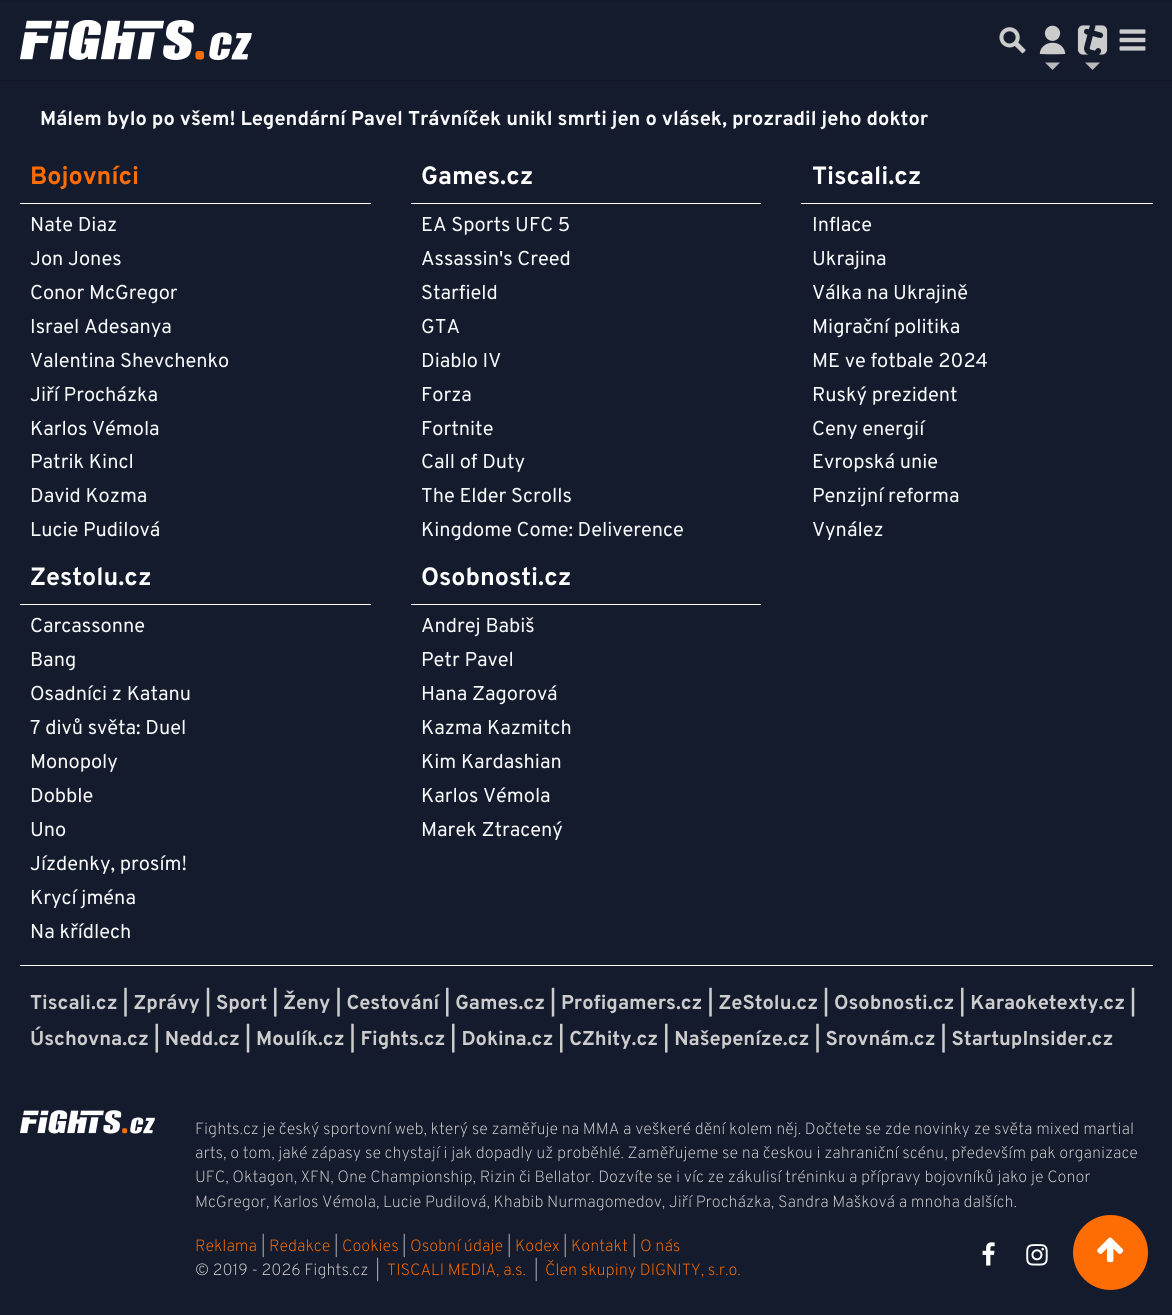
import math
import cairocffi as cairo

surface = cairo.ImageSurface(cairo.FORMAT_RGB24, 1172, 1315)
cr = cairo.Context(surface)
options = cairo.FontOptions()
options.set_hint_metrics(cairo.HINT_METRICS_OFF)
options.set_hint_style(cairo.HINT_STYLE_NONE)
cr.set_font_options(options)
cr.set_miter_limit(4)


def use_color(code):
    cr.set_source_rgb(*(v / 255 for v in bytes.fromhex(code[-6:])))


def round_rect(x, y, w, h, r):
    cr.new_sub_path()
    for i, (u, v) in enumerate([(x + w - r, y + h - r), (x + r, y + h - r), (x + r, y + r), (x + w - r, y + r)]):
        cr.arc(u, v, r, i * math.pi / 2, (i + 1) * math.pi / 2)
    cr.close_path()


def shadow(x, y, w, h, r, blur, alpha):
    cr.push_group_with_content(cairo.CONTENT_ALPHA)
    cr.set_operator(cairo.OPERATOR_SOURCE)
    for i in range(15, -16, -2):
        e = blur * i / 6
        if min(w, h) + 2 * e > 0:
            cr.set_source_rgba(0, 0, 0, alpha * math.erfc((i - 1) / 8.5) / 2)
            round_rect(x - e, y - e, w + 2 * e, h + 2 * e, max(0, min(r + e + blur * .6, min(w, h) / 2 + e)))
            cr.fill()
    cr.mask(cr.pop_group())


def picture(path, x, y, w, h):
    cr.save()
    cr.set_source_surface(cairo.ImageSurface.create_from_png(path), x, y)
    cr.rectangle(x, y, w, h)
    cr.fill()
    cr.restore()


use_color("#141b2d")
cr.paint()
use_color("#0f1522")
shadow(0, 1, 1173, 80, 0, 0.5, 1)
use_color("#141b2d")
cr.rectangle(0, 1, 1172, 79)
cr.fill()
picture("img1.png", 20, 20, 232, 40)
picture("img2.png", 999, 27, 27, 27)
picture("img3.png", 1039, 25, 27, 30)
use_color("#b9b9b9")
cr.new_path()
cr.move_to(1045, 62.5)
cr.line_to(1060, 62.5)
cr.line_to(1052.5, 70)
cr.close_path()
cr.fill()
picture("img4.png", 1077, 25, 31, 30)
cr.new_path()
cr.move_to(1085, 62.5)
cr.line_to(1100, 62.5)
cr.line_to(1092.5, 70)
cr.close_path()
cr.fill()
picture("img5.png", 1119, 29, 27, 22)
cr.select_font_face("Overpass", cairo.FONT_SLANT_NORMAL, cairo.FONT_WEIGHT_BOLD)
cr.set_font_size(20)
use_color("#f8f9fa")
cr.move_to(40, 125)
cr.show_text("Málem bylo po všem! Legendární Pavel Trávníček unikl smrti jen o vlásek, prozradil jeho doktor")
cr.set_font_size(25)
use_color("#fd6d03")
cr.move_to(30, 184)
cr.show_text("Bojovníci")
use_color("#ffffff")
cr.rectangle(20, 203, 351, 1)
cr.fill()
cr.select_font_face("Overpass")
cr.set_font_size(20)
use_color("#f8f9fa")
cr.move_to(30, 231)
cr.show_text("Nate Diaz")
cr.move_to(30, 265)
cr.show_text("Jon Jones")
cr.move_to(30, 299)
cr.show_text("Conor McGregor")
cr.move_to(30, 333)
cr.show_text("Israel Adesanya")
cr.move_to(30, 367)
cr.show_text("Valentina Shevchenko")
cr.move_to(30, 401)
cr.show_text("Jiří Procházka")
cr.move_to(30, 435)
cr.show_text("Karlos Vémola")
cr.move_to(30, 468)
cr.show_text("Patrik Kincl")
cr.move_to(30, 502)
cr.show_text("David Kozma")
cr.move_to(30, 536)
cr.show_text("Lucie Pudilová")
cr.select_font_face("Overpass", cairo.FONT_SLANT_NORMAL, cairo.FONT_WEIGHT_BOLD)
cr.set_font_size(25)
use_color("#ffffff")
cr.move_to(421, 184)
cr.show_text("Games.cz")
cr.rectangle(411, 203, 350, 1)
cr.fill()
cr.select_font_face("Overpass")
cr.set_font_size(20)
use_color("#f8f9fa")
cr.move_to(421, 231)
cr.show_text("EA Sports UFC 5")
cr.move_to(421, 265)
cr.show_text("Assassin's Creed")
cr.move_to(421, 299)
cr.show_text("Starfield")
cr.move_to(421, 333)
cr.show_text("GTA")
cr.move_to(421, 367)
cr.show_text("Diablo IV")
cr.move_to(421, 401)
cr.show_text("Forza")
cr.move_to(421, 435)
cr.show_text("Fortnite")
cr.move_to(421, 468)
cr.show_text("Call of Duty")
cr.move_to(421, 502)
cr.show_text("The Elder Scrolls")
cr.move_to(421, 536)
cr.show_text("Kingdome Come: Deliverence")
cr.select_font_face("Overpass", cairo.FONT_SLANT_NORMAL, cairo.FONT_WEIGHT_BOLD)
cr.set_font_size(25)
use_color("#ffffff")
cr.move_to(812, 184)
cr.show_text("Tiscali.cz")
cr.rectangle(801, 203, 352, 1)
cr.fill()
cr.select_font_face("Overpass")
cr.set_font_size(20)
use_color("#f8f9fa")
cr.move_to(812, 231)
cr.show_text("Inflace")
cr.move_to(812, 265)
cr.show_text("Ukrajina")
cr.move_to(812, 299)
cr.show_text("Válka na Ukrajině")
cr.move_to(812, 333)
cr.show_text("Migrační politika")
cr.move_to(812, 367)
cr.show_text("ME ve fotbale 2024")
cr.move_to(812, 401)
cr.show_text("Ruský prezident")
cr.move_to(812, 435)
cr.show_text("Ceny energií")
cr.move_to(812, 468)
cr.show_text("Evropská unie")
cr.move_to(812, 502)
cr.show_text("Penzijní reforma")
cr.move_to(812, 536)
cr.show_text("Vynález")
cr.select_font_face("Overpass", cairo.FONT_SLANT_NORMAL, cairo.FONT_WEIGHT_BOLD)
cr.set_font_size(25)
use_color("#ffffff")
cr.move_to(30, 585)
cr.show_text("Zestolu.cz")
cr.rectangle(20, 604, 351, 1)
cr.fill()
cr.select_font_face("Overpass")
cr.set_font_size(20)
use_color("#f8f9fa")
cr.move_to(30, 632)
cr.show_text("Carcassonne")
cr.move_to(30, 666)
cr.show_text("Bang")
cr.move_to(30, 700)
cr.show_text("Osadníci z Katanu")
cr.move_to(30, 734)
cr.show_text("7 divů světa: Duel")
cr.move_to(30, 768)
cr.show_text("Monopoly")
cr.move_to(30, 802)
cr.show_text("Dobble")
cr.move_to(30, 836)
cr.show_text("Uno")
cr.move_to(30, 870)
cr.show_text("Jízdenky, prosím!")
cr.move_to(30, 904)
cr.show_text("Krycí jména")
cr.move_to(30, 938)
cr.show_text("Na křídlech")
cr.select_font_face("Overpass", cairo.FONT_SLANT_NORMAL, cairo.FONT_WEIGHT_BOLD)
cr.set_font_size(25)
use_color("#ffffff")
cr.move_to(421, 585)
cr.show_text("Osobnosti.cz")
cr.rectangle(411, 604, 350, 1)
cr.fill()
cr.select_font_face("Overpass")
cr.set_font_size(20)
use_color("#f8f9fa")
cr.move_to(421, 632)
cr.show_text("Andrej Babiš")
cr.move_to(421, 666)
cr.show_text("Petr Pavel")
cr.move_to(421, 700)
cr.show_text("Hana Zagorová")
cr.move_to(421, 734)
cr.show_text("Kazma Kazmitch")
cr.move_to(421, 768)
cr.show_text("Kim Kardashian")
cr.move_to(421, 802)
cr.show_text("Karlos Vémola")
cr.move_to(421, 836)
cr.show_text("Marek Ztracený")
use_color("#ffffff")
cr.rectangle(20, 965, 1133, 1)
cr.fill()
cr.select_font_face("Overpass", cairo.FONT_SLANT_NORMAL, cairo.FONT_WEIGHT_BOLD)
use_color("#cccccc")
cr.move_to(30, 1009)
cr.show_text("Tiscali.cz | Zprávy | Sport | Ženy | Cestování | Games.cz | Profigamers.cz | ZeStolu.cz | Osobnosti.cz | Karaoketexty.cz |")
cr.move_to(30, 1045)
cr.show_text("Úschovna.cz | Nedd.cz | Moulík.cz | Fights.cz | Dokina.cz | CZhity.cz | Našepeníze.cz | Srovnám.cz | StartupInsider.cz")
picture("img6.png", 20, 1110, 135, 24)
cr.select_font_face("Overpass ExtraLight")
cr.set_font_size(16.25)
cr.move_to(195, 1134)
cr.show_text("Fights.cz je český sportovní web, který se zaměřuje na MMA a veškeré dění kolem něj. Dočtete se zde novinky ze světa mixed martial")
cr.move_to(195, 1158)
cr.show_text("arts, o tom, jaké zápasy se chystají i jak dopadly už proběhlé. Zaměřujeme se na českou i zahraniční scénu, především pak organizace")
cr.move_to(195, 1182)
cr.show_text("UFC, Oktagon, XFN, One Championship, Rizin či Bellator. Dozvíte se i víc ze zákulisí tréninku a přípravy bojovníků jako je Conor")
cr.move_to(195, 1207)
cr.show_text("McGregor, Karlos Vémola, Lucie Pudilová, Khabib Nurmagomedov, Jiří Procházka, Sandra Mašková a mnoha dalších.")
use_color("#fd6d03")
cr.move_to(195, 1251)
cr.show_text("Reklama")
use_color("#cccccc")
cr.move_to(261, 1251)
cr.show_text("|")
use_color("#fd6d03")
cr.move_to(269, 1251)
cr.show_text("Redakce")
use_color("#cccccc")
cr.move_to(334, 1251)
cr.show_text("|")
use_color("#fd6d03")
cr.move_to(342, 1251)
cr.show_text("Cookies")
use_color("#cccccc")
cr.move_to(402, 1251)
cr.show_text("|")
use_color("#fd6d03")
cr.move_to(410, 1251)
cr.show_text("Osobní údaje")
use_color("#cccccc")
cr.move_to(507, 1251)
cr.show_text("|")
use_color("#fd6d03")
cr.move_to(515, 1251)
cr.show_text("Kodex")
use_color("#cccccc")
cr.move_to(563, 1251)
cr.show_text("|")
use_color("#fd6d03")
cr.move_to(571, 1251)
cr.show_text("Kontakt")
use_color("#cccccc")
cr.move_to(632, 1251)
cr.show_text("|")
use_color("#fd6d03")
cr.move_to(640, 1251)
cr.show_text("O nás")
use_color("#cccccc")
cr.move_to(195, 1275)
cr.show_text("© 2019 - 2026 Fights.cz  |")
use_color("#fd6d03")
cr.move_to(387, 1275)
cr.show_text("TISCALI MEDIA, a.s.")
use_color("#cccccc")
cr.move_to(534, 1275)
cr.show_text("|")
use_color("#fd6d03")
cr.move_to(545, 1275)
cr.show_text("Člen skupiny DIGNITY, s.r.o.")
picture("img7.png", 982, 1242, 13, 24)
picture("img8.png", 1026, 1244, 22, 22)
picture("img9.png", 1074, 1261, 1, 1)
cr.arc(1110.5, 1252.5, 37.5, 0, 2 * math.pi)
cr.fill()
picture("img10.png", 1097, 1237, 27, 26)
surface.write_to_png("result.png")
